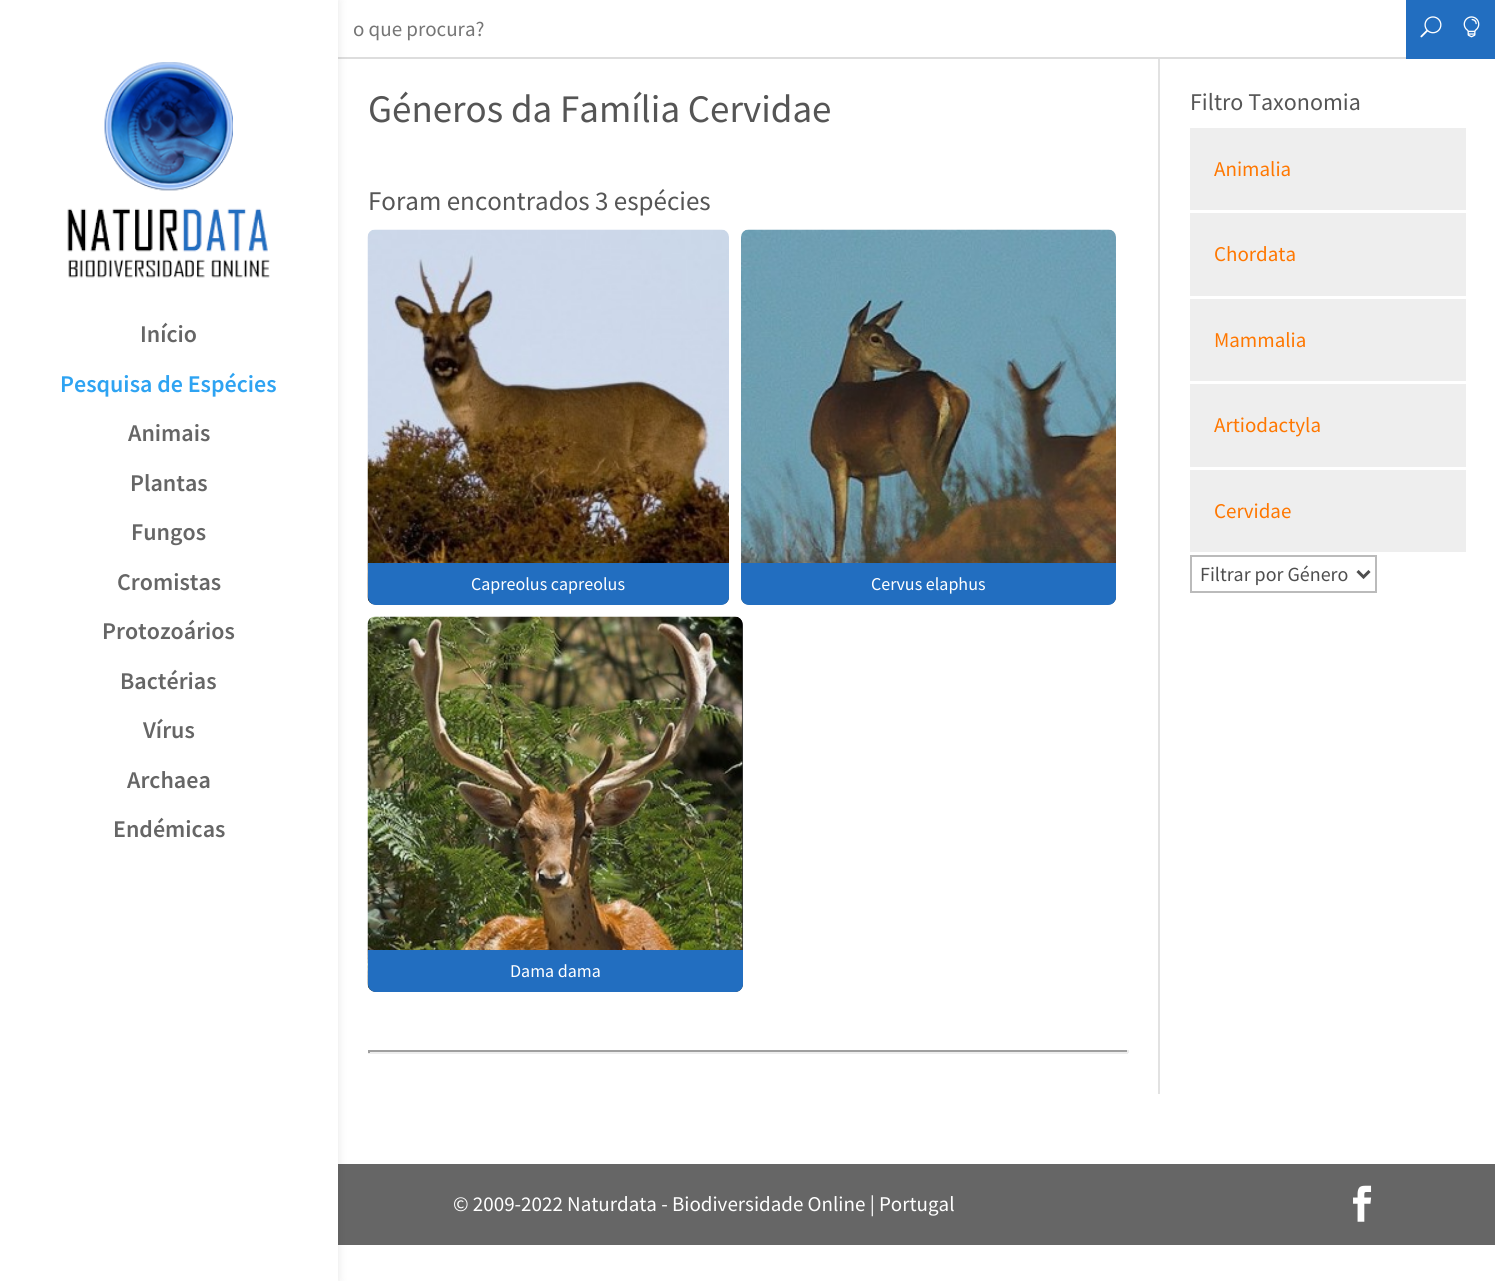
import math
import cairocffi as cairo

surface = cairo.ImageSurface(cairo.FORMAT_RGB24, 1495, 1281)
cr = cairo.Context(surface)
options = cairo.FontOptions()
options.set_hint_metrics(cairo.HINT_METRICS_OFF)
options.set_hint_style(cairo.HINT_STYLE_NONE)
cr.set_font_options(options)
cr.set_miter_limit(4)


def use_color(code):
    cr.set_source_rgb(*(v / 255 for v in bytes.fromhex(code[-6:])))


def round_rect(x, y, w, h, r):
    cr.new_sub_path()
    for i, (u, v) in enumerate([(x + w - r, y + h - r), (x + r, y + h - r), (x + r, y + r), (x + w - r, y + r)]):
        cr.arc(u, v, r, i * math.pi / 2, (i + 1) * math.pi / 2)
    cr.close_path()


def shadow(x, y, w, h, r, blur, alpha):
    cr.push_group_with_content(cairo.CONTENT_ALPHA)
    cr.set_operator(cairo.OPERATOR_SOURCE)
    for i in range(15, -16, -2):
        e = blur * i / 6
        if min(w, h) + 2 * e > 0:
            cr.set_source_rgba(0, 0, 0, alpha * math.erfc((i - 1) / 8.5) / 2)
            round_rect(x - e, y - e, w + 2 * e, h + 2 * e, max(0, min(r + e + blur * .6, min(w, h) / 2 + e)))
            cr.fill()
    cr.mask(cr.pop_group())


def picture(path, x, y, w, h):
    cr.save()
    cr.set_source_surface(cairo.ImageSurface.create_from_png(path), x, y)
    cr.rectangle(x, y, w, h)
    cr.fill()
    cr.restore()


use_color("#ffffff")
cr.paint()
use_color("#dddddd")
cr.rectangle(338, 57, 1068, 2)
cr.fill()
use_color("#666666")
cr.rectangle(338, 1164, 1157, 81)
cr.fill()
use_color("#000000")
shadow(0, 0, 338, 1281, 0, 5, 0.1)
use_color("#ffffff")
cr.rectangle(0, 0, 338, 1281)
cr.fill()
picture("img1.png", 67, 62, 203, 216)
cr.select_font_face("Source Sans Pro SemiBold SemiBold")
cr.set_font_size(24)
use_color("#666666")
cr.move_to(140, 342)
cr.show_text("Início")
use_color("#2ea3f2")
cr.move_to(60, 392)
cr.show_text("Pesquisa de Espécies")
use_color("#666666")
cr.move_to(128, 441)
cr.show_text("Animais")
cr.move_to(130, 491)
cr.show_text("Plantas")
cr.move_to(131, 540)
cr.show_text("Fungos")
cr.move_to(117, 590)
cr.show_text("Cromistas")
cr.move_to(102, 639)
cr.show_text("Protozoários")
cr.move_to(120, 689)
cr.show_text("Bactérias")
cr.move_to(143, 738)
cr.show_text("Vírus")
cr.move_to(127, 788)
cr.show_text("Archaea")
cr.move_to(113, 837)
cr.show_text("Endémicas")
cr.select_font_face("Source Sans Pro")
cr.set_font_size(21)
use_color("#757575")
cr.move_to(353, 36)
cr.show_text("o que procura?")
use_color("#226ec0")
cr.rectangle(1406, 0, 89, 59)
cr.fill()
picture("img2.png", 1420, 16, 22, 22)
picture("img3.png", 1463, 16, 17, 22)
cr.set_font_size(39)
use_color("#555555")
cr.move_to(368, 122)
cr.show_text("Géneros da Família Cervidae")
cr.set_font_size(27)
cr.move_to(368, 210)
cr.show_text("Foram encontrados 3 espécies")
picture("img4.png", 367, 229, 362, 376)
use_color("#226ec0")
cr.new_path()
cr.move_to(368, 563)
cr.line_to(729, 563)
cr.line_to(729, 597)
cr.curve_to(729, 601.5, 725.5, 605, 721, 605)
cr.line_to(376, 605)
cr.curve_to(371.5, 605, 368, 601.5, 368, 597)
cr.close_path()
cr.fill()
cr.set_font_size(18)
use_color("#ffffff")
cr.move_to(471, 590)
cr.show_text("Capreolus capreolus")
picture("img5.png", 741, 229, 375, 376)
use_color("#226ec0")
cr.new_path()
cr.move_to(741, 563)
cr.line_to(1116, 563)
cr.line_to(1116, 597)
cr.curve_to(1116, 601.5, 1112.5, 605, 1108, 605)
cr.line_to(749, 605)
cr.curve_to(744.5, 605, 741, 601.5, 741, 597)
cr.close_path()
cr.fill()
use_color("#ffffff")
cr.move_to(871, 590)
cr.show_text("Cervus elaphus")
use_color("#333333")
round_rect(368, 617, 375, 375, 8)
cr.fill()
picture("img6.png", 367, 616, 376, 376)
use_color("#226ec0")
cr.new_path()
cr.move_to(368, 950)
cr.line_to(743, 950)
cr.line_to(743, 984)
cr.curve_to(743, 988.5, 739.5, 992, 735, 992)
cr.line_to(376, 992)
cr.curve_to(371.5, 992, 368, 988.5, 368, 984)
cr.close_path()
cr.fill()
use_color("#ffffff")
cr.move_to(510, 977)
cr.show_text("Dama dama")
use_color("#9f9f9f")
cr.rectangle(368, 1050, 760, 2)
cr.fill()
use_color("#eeeeee")
cr.rectangle(1127, 1050, 2, 3)
cr.fill()
cr.rectangle(368, 1052, 760, 2)
cr.fill()
use_color("#9f9f9f")
cr.rectangle(368, 1050, 2, 3)
cr.fill()
use_color("#e2e2e2")
cr.rectangle(1158, 59, 2, 1035)
cr.fill()
cr.set_font_size(24)
use_color("#555555")
cr.move_to(1190, 110)
cr.show_text("Filtro Taxonomia")
use_color("#eeeeee")
cr.rectangle(1190, 128, 276, 82)
cr.fill()
cr.set_font_size(21)
use_color("#ff7700")
cr.move_to(1214, 176)
cr.show_text("Animalia")
use_color("#eeeeee")
cr.rectangle(1190, 213, 276, 83)
cr.fill()
use_color("#ff7700")
cr.move_to(1214, 261)
cr.show_text("Chordata")
use_color("#eeeeee")
cr.rectangle(1190, 299, 276, 82)
cr.fill()
use_color("#ff7700")
cr.move_to(1214, 347)
cr.show_text("Mammalia")
use_color("#eeeeee")
cr.rectangle(1190, 384, 276, 83)
cr.fill()
use_color("#ff7700")
cr.move_to(1214, 432)
cr.show_text("Artiodactyla")
use_color("#eeeeee")
cr.rectangle(1190, 470, 276, 82)
cr.fill()
use_color("#ff7700")
cr.move_to(1214, 518)
cr.show_text("Cervidae")
cr.rectangle(1191, 556, 185, 36)
use_color("#bbbbbb")
cr.stroke()
cr.new_path()
cr.move_to(1357.5, 571)
cr.line_to(1363.5, 577)
cr.line_to(1369.5, 571)
use_color("#4e4e4e")
cr.set_line_width(3)
cr.stroke()
cr.set_font_size(20)
cr.move_to(1200, 581)
cr.show_text("Filtrar por Género")
cr.set_font_size(21)
use_color("#ffffff")
cr.move_to(453, 1211)
cr.show_text("© 2009-2022 Naturdata - Biodiversidade Online | Portugal")
picture("img7.png", 1353, 1185, 19, 37)
surface.write_to_png("result.png")
